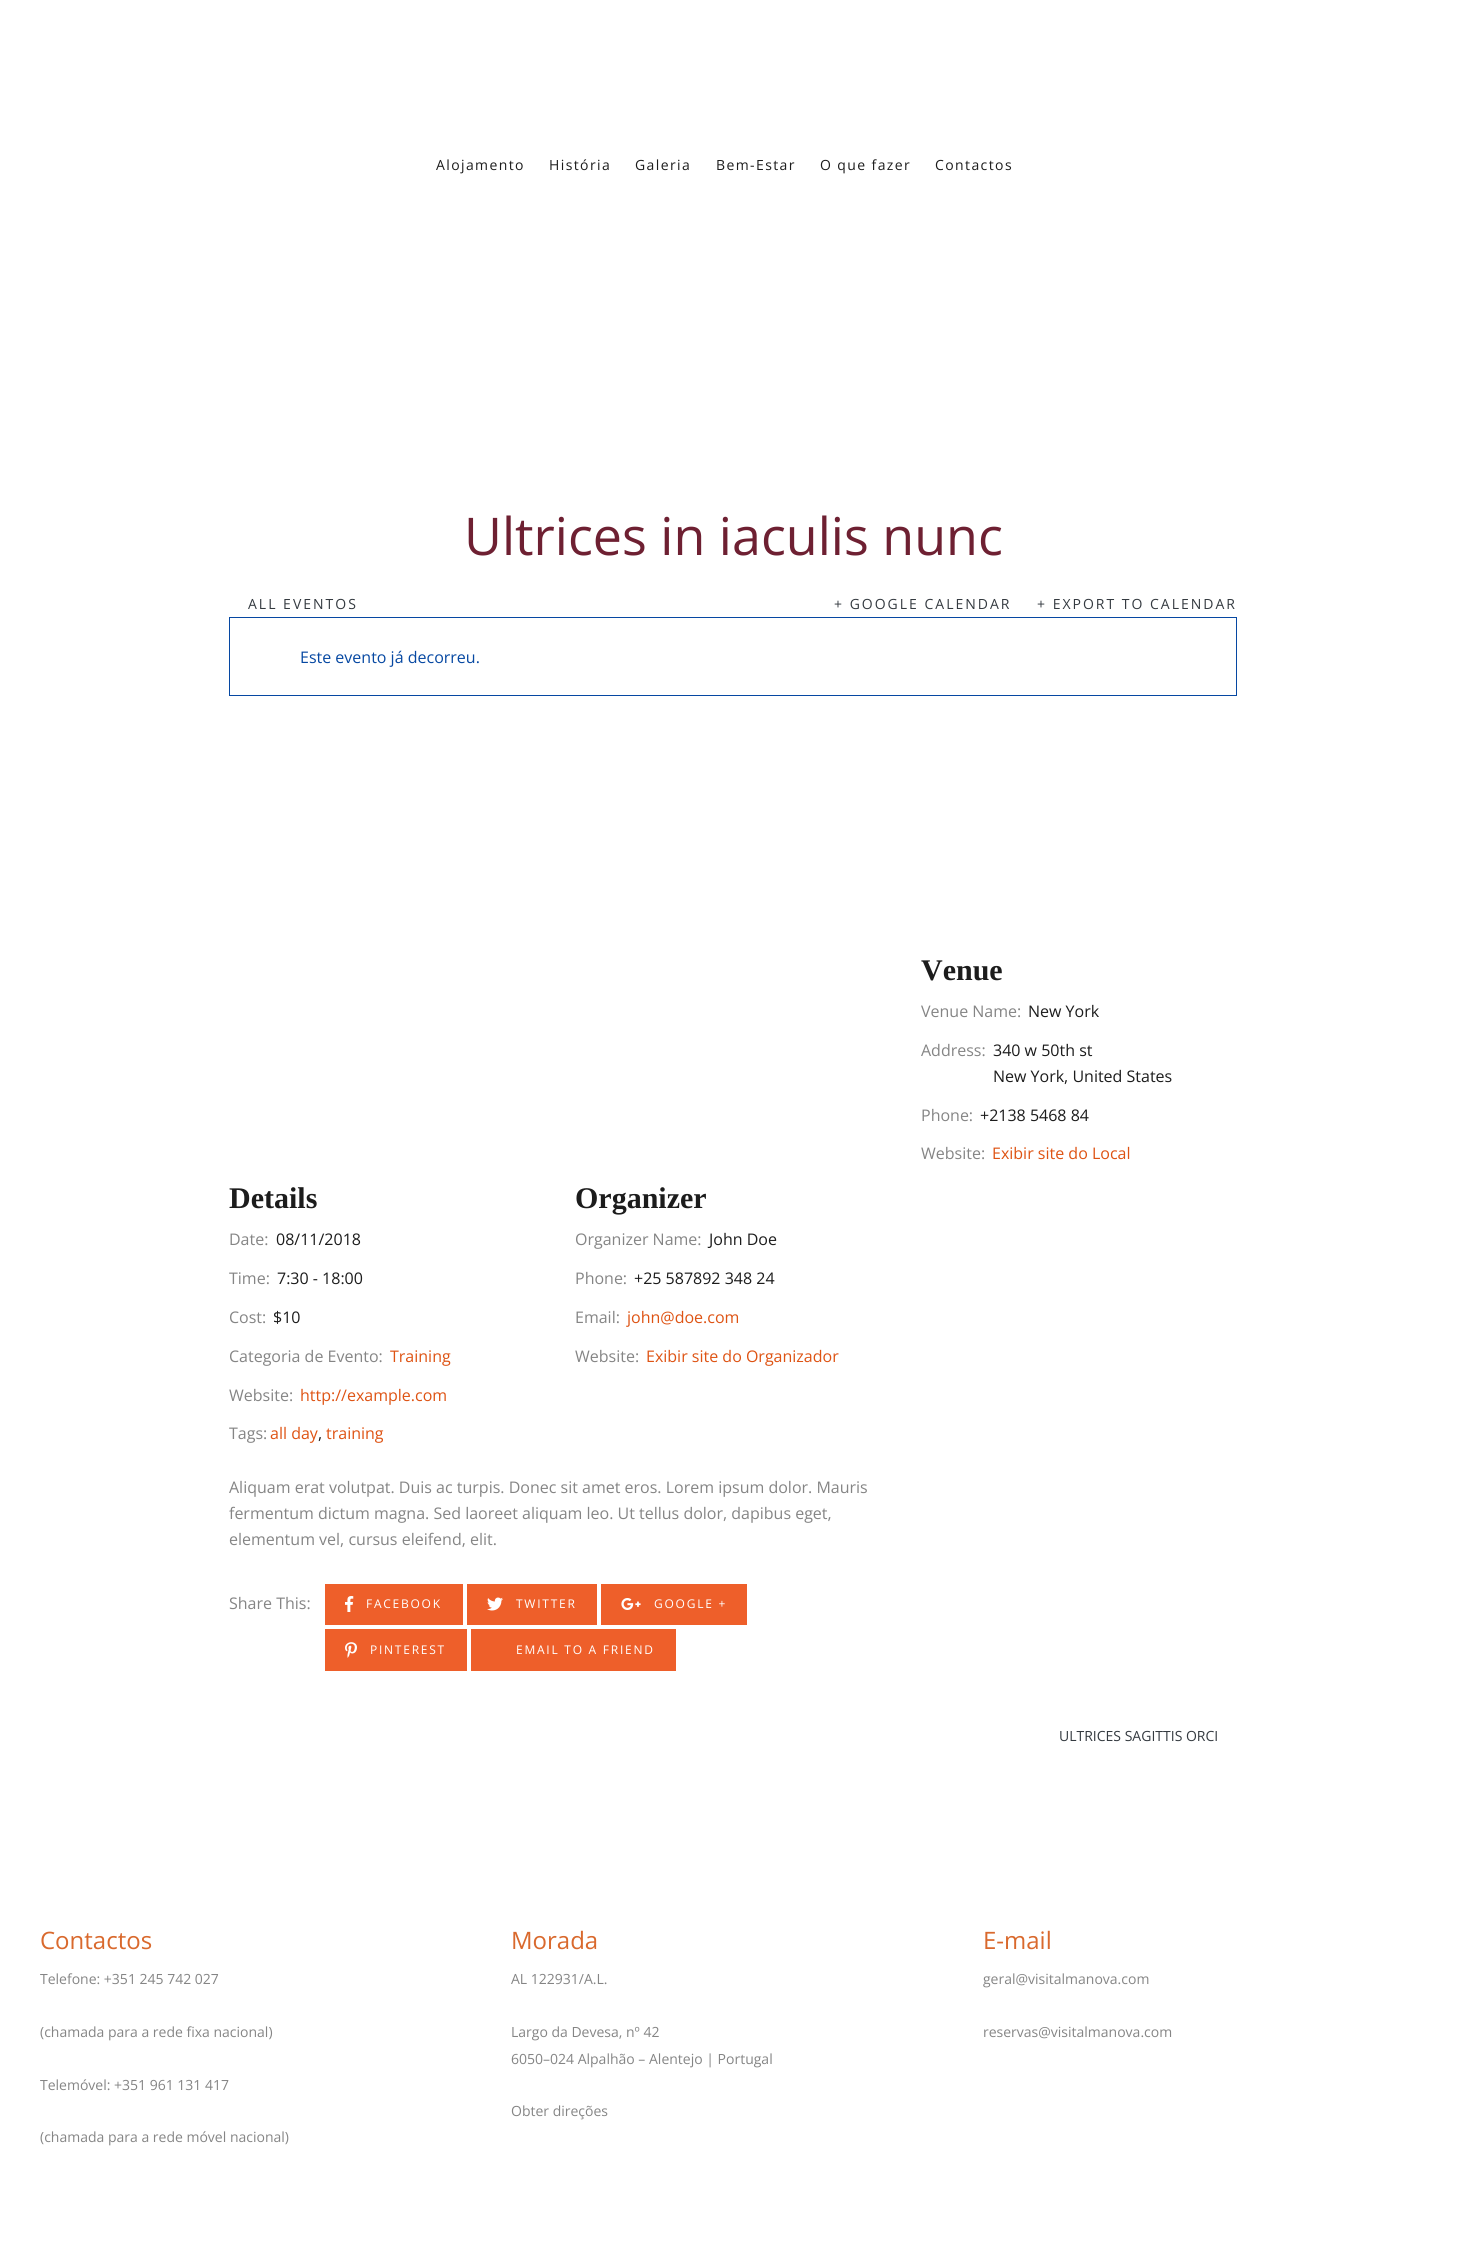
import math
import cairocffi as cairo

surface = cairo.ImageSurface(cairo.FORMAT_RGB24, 1466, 2253)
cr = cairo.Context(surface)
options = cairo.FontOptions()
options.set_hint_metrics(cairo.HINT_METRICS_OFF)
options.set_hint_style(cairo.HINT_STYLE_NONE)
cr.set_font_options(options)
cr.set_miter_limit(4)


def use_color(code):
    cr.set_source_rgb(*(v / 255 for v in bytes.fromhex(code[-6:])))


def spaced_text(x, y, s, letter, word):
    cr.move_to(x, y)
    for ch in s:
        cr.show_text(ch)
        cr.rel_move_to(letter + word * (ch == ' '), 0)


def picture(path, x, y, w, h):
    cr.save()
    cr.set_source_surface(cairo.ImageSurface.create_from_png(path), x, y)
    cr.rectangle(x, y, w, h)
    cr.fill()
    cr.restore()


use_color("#ffffff")
cr.paint()
cr.select_font_face("Open Sans")
cr.set_font_size(14)
use_color("#1c1c1c")
spaced_text(436, 170, "Alojamento", 1.4, 0)
spaced_text(549, 170, "História", 1.4, 0)
spaced_text(635, 170, "Galeria", 1.4, 0)
spaced_text(716, 170, "Bem-Estar", 1.4, 0)
spaced_text(820, 170, "O que fazer", 1.4, 0)
spaced_text(935, 170, "Contactos", 1.4, 0)
cr.set_font_size(52)
use_color("#6e2032")
cr.move_to(464, 555)
cr.show_text("Ultrices in iaculis nunc")
cr.set_font_size(14)
use_color("#343a40")
spaced_text(248, 609, "ALL EVENTOS", 2, 0)
spaced_text(834, 609, "+ GOOGLE CALENDAR", 2, 0)
spaced_text(1037, 609, "+ EXPORT TO CALENDAR", 2, 0)
cr.rectangle(229.5, 617.5, 1007, 78)
use_color("#0648a2")
cr.set_line_width(1)
cr.stroke()
cr.set_font_size(16)
cr.move_to(300, 663)
cr.show_text("Este evento já decorreu.")
cr.select_font_face("Liberation Serif", cairo.FONT_SLANT_NORMAL, cairo.FONT_WEIGHT_BOLD)
cr.set_font_size(30)
use_color("#1c1c1c")
cr.move_to(921, 980)
cr.show_text("Venue")
cr.select_font_face("Open Sans")
cr.set_font_size(16)
use_color("#858585")
cr.move_to(921, 1017)
cr.show_text("Venue Name:")
use_color("#1c1c1c")
cr.move_to(1028, 1017)
cr.show_text("New York")
use_color("#858585")
cr.move_to(921, 1056)
cr.show_text("Address:")
use_color("#1c1c1c")
cr.move_to(993, 1056)
cr.show_text("340 w 50th st")
cr.move_to(993, 1082)
cr.show_text("New York, United States")
use_color("#858585")
cr.move_to(921, 1121)
cr.show_text("Phone:")
use_color("#1c1c1c")
cr.move_to(980, 1121)
cr.show_text("+2138 5468 84")
use_color("#858585")
cr.move_to(921, 1159)
cr.show_text("Website:")
use_color("#de5313")
cr.move_to(992, 1159)
cr.show_text("Exibir site do Local")
cr.select_font_face("Liberation Serif", cairo.FONT_SLANT_NORMAL, cairo.FONT_WEIGHT_BOLD)
cr.set_font_size(30)
use_color("#1c1c1c")
cr.move_to(229, 1208)
cr.show_text("Details")
cr.select_font_face("Open Sans")
cr.set_font_size(16)
use_color("#858585")
cr.move_to(229, 1245)
cr.show_text("Date:")
use_color("#1c1c1c")
cr.move_to(276, 1245)
cr.show_text("08/11/2018")
use_color("#858585")
cr.move_to(229, 1284)
cr.show_text("Time:")
use_color("#1c1c1c")
cr.move_to(277, 1284)
cr.show_text("7:30 - 18:00")
use_color("#858585")
cr.move_to(229, 1323)
cr.show_text("Cost:")
use_color("#1c1c1c")
cr.move_to(273, 1323)
cr.show_text("$10")
use_color("#858585")
cr.move_to(229, 1362)
cr.show_text("Categoria de Evento:")
use_color("#de5313")
cr.move_to(390, 1362)
cr.show_text("Training")
use_color("#858585")
cr.move_to(229, 1401)
cr.show_text("Website:")
use_color("#de5313")
cr.move_to(300, 1401)
cr.show_text("http://example.com")
use_color("#858585")
cr.move_to(229, 1439)
cr.show_text("Tags:")
use_color("#de5313")
cr.move_to(270, 1439)
cr.show_text("all day")
use_color("#1c1c1c")
cr.move_to(318, 1439)
cr.show_text(",")
use_color("#de5313")
cr.move_to(326, 1439)
cr.show_text("training")
cr.select_font_face("Liberation Serif", cairo.FONT_SLANT_NORMAL, cairo.FONT_WEIGHT_BOLD)
cr.set_font_size(30)
use_color("#1c1c1c")
cr.move_to(575, 1208)
cr.show_text("Organizer")
cr.select_font_face("Open Sans")
cr.set_font_size(16)
use_color("#858585")
cr.move_to(575, 1245)
cr.show_text("Organizer Name:")
use_color("#1c1c1c")
cr.move_to(709, 1245)
cr.show_text("John Doe")
use_color("#858585")
cr.move_to(575, 1284)
cr.show_text("Phone:")
use_color("#1c1c1c")
cr.move_to(634, 1284)
cr.show_text("+25 587892 348 24")
use_color("#858585")
cr.move_to(575, 1323)
cr.show_text("Email:")
use_color("#de5313")
cr.move_to(627, 1323)
cr.show_text("john@doe.com")
use_color("#858585")
cr.move_to(575, 1362)
cr.show_text("Website:")
use_color("#de5313")
cr.move_to(646, 1362)
cr.show_text("Exibir site do Organizador")
use_color("#858585")
cr.move_to(229, 1493)
cr.show_text("Aliquam erat volutpat. Duis ac turpis. Donec sit amet eros. Lorem ipsum dolor. Mauris")
cr.move_to(229, 1519)
cr.show_text("fermentum dictum magna. Sed laoreet aliquam leo. Ut tellus dolor, dapibus eget,")
cr.move_to(229, 1545)
cr.show_text("elementum vel, cursus eleifend, elit.")
cr.move_to(229, 1609)
cr.show_text("Share This:")
use_color("#ee5f2a")
cr.rectangle(325, 1584, 138, 41)
cr.fill()
picture("img1.png", 345, 1596, 9, 16)
cr.set_font_size(12)
use_color("#ffffff")
spaced_text(366, 1608, "FACEBOOK", 1.75, 0)
use_color("#ee5f2a")
cr.rectangle(467, 1584, 130, 41)
cr.fill()
picture("img2.png", 487, 1597, 16, 14)
use_color("#ffffff")
spaced_text(516, 1608, "TWITTER", 1.75, 0)
use_color("#ee5f2a")
cr.rectangle(601, 1584, 146, 41)
cr.fill()
picture("img3.png", 621, 1598, 20, 12)
use_color("#ffffff")
spaced_text(654, 1608, "GOOGLE +", 1.75, 0)
use_color("#ee5f2a")
cr.rectangle(325, 1629, 142, 42)
cr.fill()
picture("img4.png", 345, 1642, 12, 16)
use_color("#ffffff")
spaced_text(370, 1654, "PINTEREST", 1.75, 0)
use_color("#ee5f2a")
cr.rectangle(471, 1629, 205, 42)
cr.fill()
use_color("#ffffff")
spaced_text(516, 1654, "EMAIL TO A FRIEND", 1.75, 0)
cr.set_font_size(14)
use_color("#343a40")
cr.move_to(1059, 1741)
cr.show_text("ULTRICES SAGITTIS ORCI")
cr.set_font_size(24)
use_color("#d9692d")
cr.move_to(40, 1949)
cr.show_text("Contactos")
cr.set_font_size(14)
use_color("#858585")
cr.move_to(40, 1984)
cr.show_text("Telefone: +351 245 742 027")
cr.move_to(40, 2037)
cr.show_text("(chamada para a rede fixa nacional)")
cr.move_to(40, 2090)
cr.show_text("Telemóvel: +351 961 131 417")
cr.move_to(40, 2142)
cr.show_text("(chamada para a rede móvel nacional)")
cr.set_font_size(24)
use_color("#d9692d")
cr.move_to(511, 1949)
cr.show_text("Morada")
cr.set_font_size(14)
use_color("#858585")
cr.move_to(511, 1984)
cr.show_text("AL 122931/A.L.")
cr.move_to(511, 2037)
cr.show_text("Largo da Devesa, nº 42")
cr.move_to(511, 2064)
cr.show_text("6050–024 Alpalhão – Alentejo | Portugal")
cr.move_to(511, 2116)
cr.show_text("Obter direções")
cr.set_font_size(24)
use_color("#d9692d")
cr.move_to(983, 1949)
cr.show_text("E-mail")
cr.set_font_size(14)
use_color("#858585")
cr.move_to(983, 1984)
cr.show_text("geral@visitalmanova.com")
cr.move_to(983, 2037)
cr.show_text("reservas@visitalmanova.com")
surface.write_to_png("result.png")
